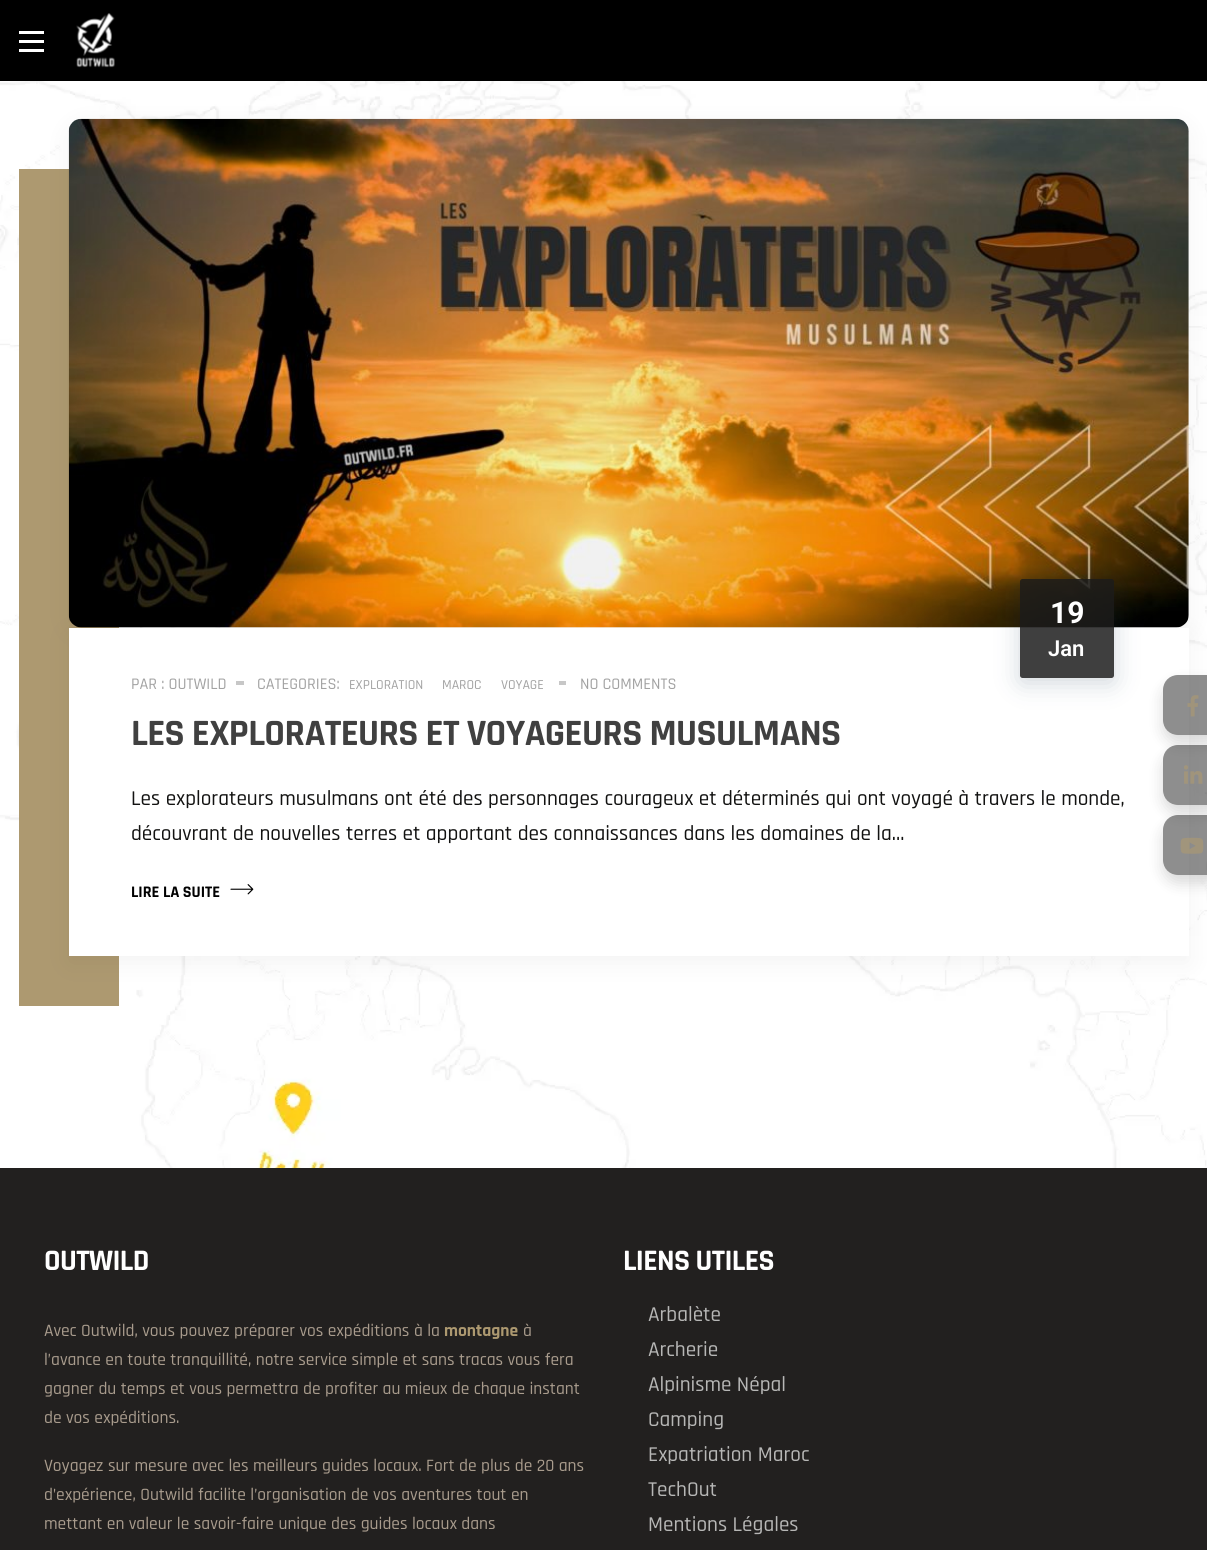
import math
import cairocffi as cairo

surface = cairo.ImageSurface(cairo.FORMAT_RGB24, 1207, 1550)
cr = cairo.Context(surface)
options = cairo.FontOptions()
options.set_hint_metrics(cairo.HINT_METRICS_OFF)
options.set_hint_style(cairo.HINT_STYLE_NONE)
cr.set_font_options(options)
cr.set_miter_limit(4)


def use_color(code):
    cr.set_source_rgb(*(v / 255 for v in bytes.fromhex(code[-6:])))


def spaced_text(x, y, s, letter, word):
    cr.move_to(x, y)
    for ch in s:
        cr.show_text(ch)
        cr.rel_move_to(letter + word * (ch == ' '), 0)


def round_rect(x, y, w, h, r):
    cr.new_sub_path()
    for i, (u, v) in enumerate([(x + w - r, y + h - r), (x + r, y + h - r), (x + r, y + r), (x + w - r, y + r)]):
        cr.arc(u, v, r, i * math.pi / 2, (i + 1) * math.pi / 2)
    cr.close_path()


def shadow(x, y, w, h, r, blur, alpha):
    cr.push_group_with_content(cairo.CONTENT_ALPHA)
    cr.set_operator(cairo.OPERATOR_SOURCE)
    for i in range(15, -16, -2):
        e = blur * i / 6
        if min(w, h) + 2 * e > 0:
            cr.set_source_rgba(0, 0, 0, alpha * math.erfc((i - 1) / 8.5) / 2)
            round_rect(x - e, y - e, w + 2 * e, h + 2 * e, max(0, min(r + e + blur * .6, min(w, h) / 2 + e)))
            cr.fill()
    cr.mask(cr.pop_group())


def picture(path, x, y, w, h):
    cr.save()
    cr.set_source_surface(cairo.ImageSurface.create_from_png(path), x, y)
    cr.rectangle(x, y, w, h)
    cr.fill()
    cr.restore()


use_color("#ffffff")
cr.paint()
picture("img1.png", 0, 81, 1207, 1087)
use_color("#000000")
cr.rectangle(0, 0, 1207, 81)
cr.fill()
use_color("#ffffff")
cr.rectangle(19, 49, 25, 3)
cr.fill()
cr.rectangle(19, 40, 25, 3)
cr.fill()
cr.rectangle(19, 31, 25, 3)
cr.fill()
picture("img2.png", 76, 13, 39, 55)
use_color("#ad9970")
cr.rectangle(19, 169, 100, 837)
cr.fill()
use_color("#000000")
shadow(69, 125, 1120, 509, 13, 12.5, 0.05)
picture("img3.png", 68, 118, 1121, 510)
shadow(69, 634, 1120, 329, 0, 12.5, 0.05)
use_color("#ffffff")
cr.rectangle(69, 628, 1120, 328)
cr.fill()
cr.save()
cr.set_fill_rule(cairo.FILL_RULE_EVEN_ODD)
cr.new_path()
cr.move_to(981, 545)
cr.line_to(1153, 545)
cr.line_to(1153, 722)
cr.line_to(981, 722)
cr.close_path()
cr.move_to(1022.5, 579)
cr.line_to(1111.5, 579)
cr.curve_to(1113, 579, 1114, 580, 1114, 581.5)
cr.line_to(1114, 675.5)
cr.curve_to(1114, 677, 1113, 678, 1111.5, 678)
cr.line_to(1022.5, 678)
cr.curve_to(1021, 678, 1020, 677, 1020, 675.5)
cr.line_to(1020, 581.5)
cr.curve_to(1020, 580, 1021, 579, 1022.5, 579)
cr.close_path()
cr.clip()
use_color("#153652")
shadow(1020, 584, 94, 99, 2.5, 12.5, 0.2)
cr.restore()
cr.set_source_rgba(0.11, 0.11, 0.11, 0.84)
round_rect(1020, 579, 94, 99, 2.5)
cr.fill()
cr.select_font_face("Roboto", cairo.FONT_SLANT_NORMAL, cairo.FONT_WEIGHT_BOLD)
cr.set_font_size(30)
use_color("#ffffff")
cr.move_to(1050, 623)
cr.show_text("19")
cr.select_font_face("Roboto SemiBold")
cr.set_font_size(22)
cr.move_to(1048, 656)
cr.show_text("Jan")
cr.select_font_face("Rajdhani Medium")
cr.set_font_size(16.25)
use_color("#a2a2a2")
cr.move_to(131, 689)
cr.show_text("PAR : OUTWILD")
use_color("#c7c7c7")
cr.rectangle(236, 681, 8, 4)
cr.fill()
use_color("#a2a2a2")
cr.move_to(257, 689)
cr.show_text("CATEGORIES:")
cr.set_font_size(13.75)
cr.move_to(349, 689)
cr.show_text("EXPLORATION")
cr.move_to(442, 689)
cr.show_text("MAROC")
cr.move_to(501, 689)
cr.show_text("VOYAGE")
use_color("#c7c7c7")
cr.rectangle(559, 681, 7, 4)
cr.fill()
cr.set_font_size(16.25)
use_color("#a2a2a2")
cr.move_to(580, 689)
cr.show_text("NO COMMENTS")
cr.select_font_face("Rajdhani", cairo.FONT_SLANT_NORMAL, cairo.FONT_WEIGHT_BOLD)
cr.set_font_size(37.5)
use_color("#404040")
spaced_text(131, 745, "LES EXPLORATEURS ET VOYAGEURS MUSULMANS", -0.6, 0)
cr.select_font_face("Rajdhani Medium")
cr.set_font_size(21.25)
use_color("#121211")
cr.move_to(131, 805)
cr.show_text("Les explorateurs musulmans ont été des personnages courageux et déterminés qui ont voyagé à travers le monde,")
cr.move_to(131, 840)
cr.show_text("découvrant de nouvelles terres et apportant des connaissances dans les domaines de la…")
cr.select_font_face("Rajdhani", cairo.FONT_SLANT_NORMAL, cairo.FONT_WEIGHT_BOLD)
cr.set_font_size(16.25)
use_color("#000000")
cr.move_to(131, 897)
cr.show_text("LIRE LA SUITE")
picture("img4.png", 230, 884, 24, 11)
use_color("#22201f")
cr.rectangle(0, 1168, 1207, 382)
cr.fill()
cr.save()
cr.set_fill_rule(cairo.FILL_RULE_EVEN_ODD)
cr.new_path()
cr.move_to(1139, 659)
cr.line_to(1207, 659)
cr.line_to(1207, 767)
cr.line_to(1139, 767)
cr.close_path()
cr.move_to(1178, 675)
cr.line_to(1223, 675)
cr.line_to(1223, 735)
cr.line_to(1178, 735)
cr.curve_to(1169.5, 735, 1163, 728.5, 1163, 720)
cr.line_to(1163, 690)
cr.curve_to(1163, 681.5, 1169.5, 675, 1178, 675)
cr.close_path()
cr.clip()
use_color("#000000")
shadow(1163, 683, 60, 60, 15, 7.5, 0.15)
cr.restore()
cr.set_source_rgba(0.078, 0.078, 0.078, 0.48)
cr.new_path()
cr.move_to(1178, 675)
cr.line_to(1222, 675)
cr.line_to(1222, 735)
cr.line_to(1178, 735)
cr.curve_to(1169.5, 735, 1163, 728.5, 1163, 720)
cr.line_to(1163, 690)
cr.curve_to(1163, 681.5, 1169.5, 675, 1178, 675)
cr.close_path()
cr.fill()
picture("img5.png", 1187, 695, 12, 22)
cr.save()
cr.set_fill_rule(cairo.FILL_RULE_EVEN_ODD)
cr.new_path()
cr.move_to(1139, 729)
cr.line_to(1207, 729)
cr.line_to(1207, 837)
cr.line_to(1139, 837)
cr.close_path()
cr.move_to(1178, 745)
cr.line_to(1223, 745)
cr.line_to(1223, 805)
cr.line_to(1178, 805)
cr.curve_to(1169.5, 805, 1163, 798.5, 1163, 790)
cr.line_to(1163, 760)
cr.curve_to(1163, 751.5, 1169.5, 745, 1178, 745)
cr.close_path()
cr.clip()
use_color("#000000")
shadow(1163, 753, 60, 60, 15, 7.5, 0.15)
cr.restore()
cr.new_path()
cr.move_to(1178, 745)
cr.line_to(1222, 745)
cr.line_to(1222, 805)
cr.line_to(1178, 805)
cr.curve_to(1169.5, 805, 1163, 798.5, 1163, 790)
cr.line_to(1163, 760)
cr.curve_to(1163, 751.5, 1169.5, 745, 1178, 745)
cr.close_path()
cr.fill()
picture("img6.png", 1184, 765, 19, 19)
cr.save()
cr.set_fill_rule(cairo.FILL_RULE_EVEN_ODD)
cr.new_path()
cr.move_to(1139, 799)
cr.line_to(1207, 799)
cr.line_to(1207, 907)
cr.line_to(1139, 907)
cr.close_path()
cr.move_to(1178, 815)
cr.line_to(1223, 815)
cr.line_to(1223, 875)
cr.line_to(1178, 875)
cr.curve_to(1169.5, 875, 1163, 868.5, 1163, 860)
cr.line_to(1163, 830)
cr.curve_to(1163, 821.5, 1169.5, 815, 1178, 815)
cr.close_path()
cr.clip()
use_color("#000000")
shadow(1163, 823, 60, 60, 15, 7.5, 0.15)
cr.restore()
cr.new_path()
cr.move_to(1178, 815)
cr.line_to(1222, 815)
cr.line_to(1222, 875)
cr.line_to(1178, 875)
cr.curve_to(1169.5, 875, 1163, 868.5, 1163, 860)
cr.line_to(1163, 830)
cr.curve_to(1163, 821.5, 1169.5, 815, 1178, 815)
cr.close_path()
cr.fill()
picture("img7.png", 1180, 837, 24, 17)
cr.set_font_size(30)
use_color("#ffffff")
spaced_text(44, 1270, "OUTWILD", -0.6, 0)
cr.select_font_face("Rajdhani Medium")
cr.set_font_size(17.5)
use_color("#a99c8d")
cr.move_to(44, 1336)
cr.show_text("Avec Outwild, vous pouvez préparer vos expéditions à la")
cr.select_font_face("Rajdhani", cairo.FONT_SLANT_NORMAL, cairo.FONT_WEIGHT_BOLD)
use_color("#ad9970")
cr.move_to(444, 1336)
cr.show_text("montagne")
cr.select_font_face("Rajdhani Medium")
use_color("#a99c8d")
cr.move_to(523, 1336)
cr.show_text("à")
cr.move_to(44, 1365)
cr.show_text("l’avance en toute tranquillité, notre service simple et sans tracas vous fera")
cr.move_to(44, 1394)
cr.show_text("gagner du temps et vous permettra de profiter au mieux de chaque instant")
cr.move_to(44, 1423)
cr.show_text("de vos expéditions.")
cr.move_to(44, 1471)
cr.show_text("Voyagez sur mesure avec les meilleurs guides locaux. Fort de plus de 20 ans")
cr.move_to(44, 1500)
cr.show_text("d’expérience, Outwild facilite l’organisation de vos aventures tout en")
cr.move_to(44, 1529)
cr.show_text("mettant en valeur le savoir-faire unique des guides locaux dans")
cr.select_font_face("Rajdhani", cairo.FONT_SLANT_NORMAL, cairo.FONT_WEIGHT_BOLD)
cr.set_font_size(30)
use_color("#ffffff")
spaced_text(623, 1270, "LIENS UTILES", -0.6, 0)
cr.select_font_face("Rajdhani Medium")
cr.set_font_size(21.25)
use_color("#b7b7b6")
cr.move_to(648, 1321)
cr.show_text("Arbalète")
cr.move_to(648, 1356)
cr.show_text("Archerie")
cr.move_to(648, 1391)
cr.show_text("Alpinisme Népal")
cr.move_to(648, 1426)
cr.show_text("Camping")
cr.move_to(648, 1461)
cr.show_text("Expatriation Maroc")
cr.move_to(648, 1496)
cr.show_text("TechOut")
cr.move_to(648, 1531)
cr.show_text("Mentions Légales")
surface.write_to_png("result.png")
